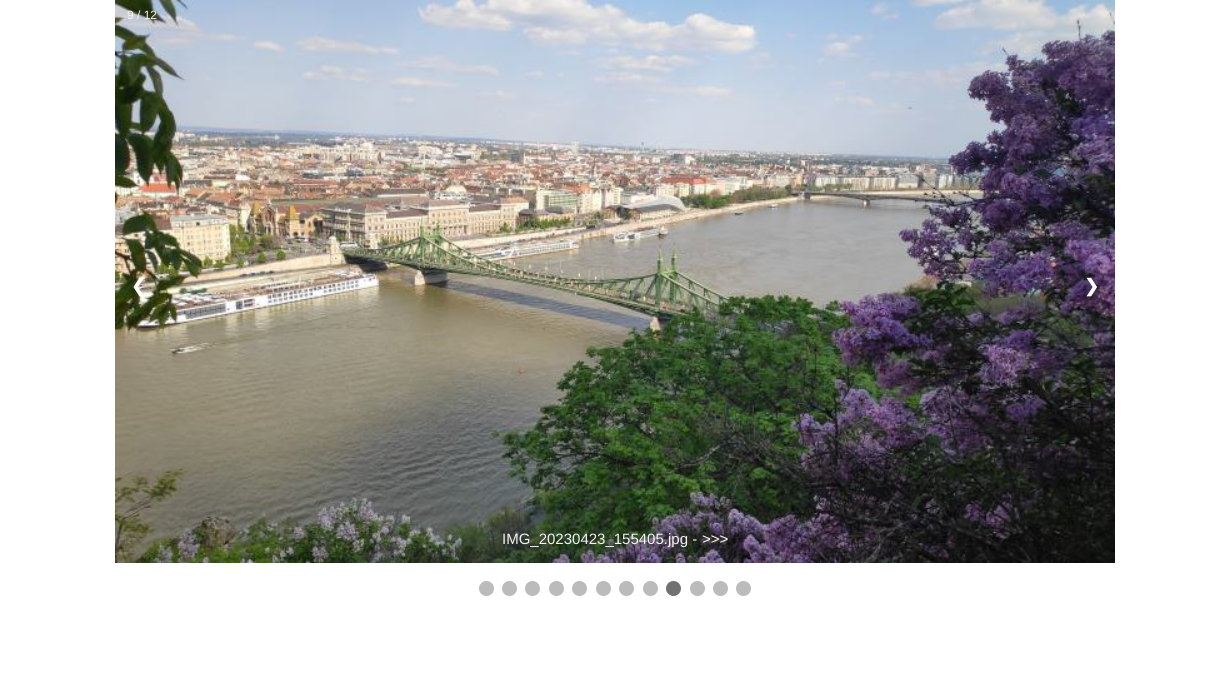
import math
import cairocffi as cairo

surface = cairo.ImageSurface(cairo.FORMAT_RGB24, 1230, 683)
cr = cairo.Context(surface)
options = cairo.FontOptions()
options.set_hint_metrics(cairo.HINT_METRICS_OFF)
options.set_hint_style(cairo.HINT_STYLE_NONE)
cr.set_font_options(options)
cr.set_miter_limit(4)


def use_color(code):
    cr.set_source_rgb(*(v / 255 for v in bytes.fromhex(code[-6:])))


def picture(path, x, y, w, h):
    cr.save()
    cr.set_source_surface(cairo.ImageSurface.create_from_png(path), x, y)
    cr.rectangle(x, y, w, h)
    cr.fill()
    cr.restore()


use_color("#ffffff")
cr.paint()
picture("img1.png", 115, 0, 1000, 563)
cr.select_font_face("Liberation Sans")
cr.set_font_size(12)
use_color("#f2f2f2")
cr.move_to(127, 19)
cr.show_text("9 / 12")
cr.set_font_size(15)
cr.move_to(502, 544)
cr.show_text("IMG_20230423_155405.jpg -")
use_color("#ffffff")
cr.move_to(702, 544)
cr.show_text(">>>")
cr.select_font_face("DejaVu Sans", cairo.FONT_SLANT_NORMAL, cairo.FONT_WEIGHT_BOLD)
cr.set_font_size(18)
cr.move_to(131, 292)
cr.show_text("❮")
cr.move_to(1084, 292)
cr.show_text("❯")
use_color("#bbbbbb")
cr.new_path()
cr.arc(486.5, 588.5, 7.5, 0, 2 * math.pi)
cr.fill()
cr.arc(509.5, 588.5, 7.5, 0, 2 * math.pi)
cr.fill()
cr.arc(532.5, 588.5, 7.5, 0, 2 * math.pi)
cr.fill()
cr.arc(556.5, 588.5, 7.5, 0, 2 * math.pi)
cr.fill()
cr.arc(579.5, 588.5, 7.5, 0, 2 * math.pi)
cr.fill()
cr.arc(603.5, 588.5, 7.5, 0, 2 * math.pi)
cr.fill()
cr.arc(626.5, 588.5, 7.5, 0, 2 * math.pi)
cr.fill()
cr.arc(650.5, 588.5, 7.5, 0, 2 * math.pi)
cr.fill()
use_color("#717171")
cr.arc(673.5, 588.5, 7.5, 0, 2 * math.pi)
cr.fill()
use_color("#bbbbbb")
cr.arc(697.5, 588.5, 7.5, 0, 2 * math.pi)
cr.fill()
cr.arc(720.5, 588.5, 7.5, 0, 2 * math.pi)
cr.fill()
cr.arc(743.5, 588.5, 7.5, 0, 2 * math.pi)
cr.fill()
surface.write_to_png("result.png")
